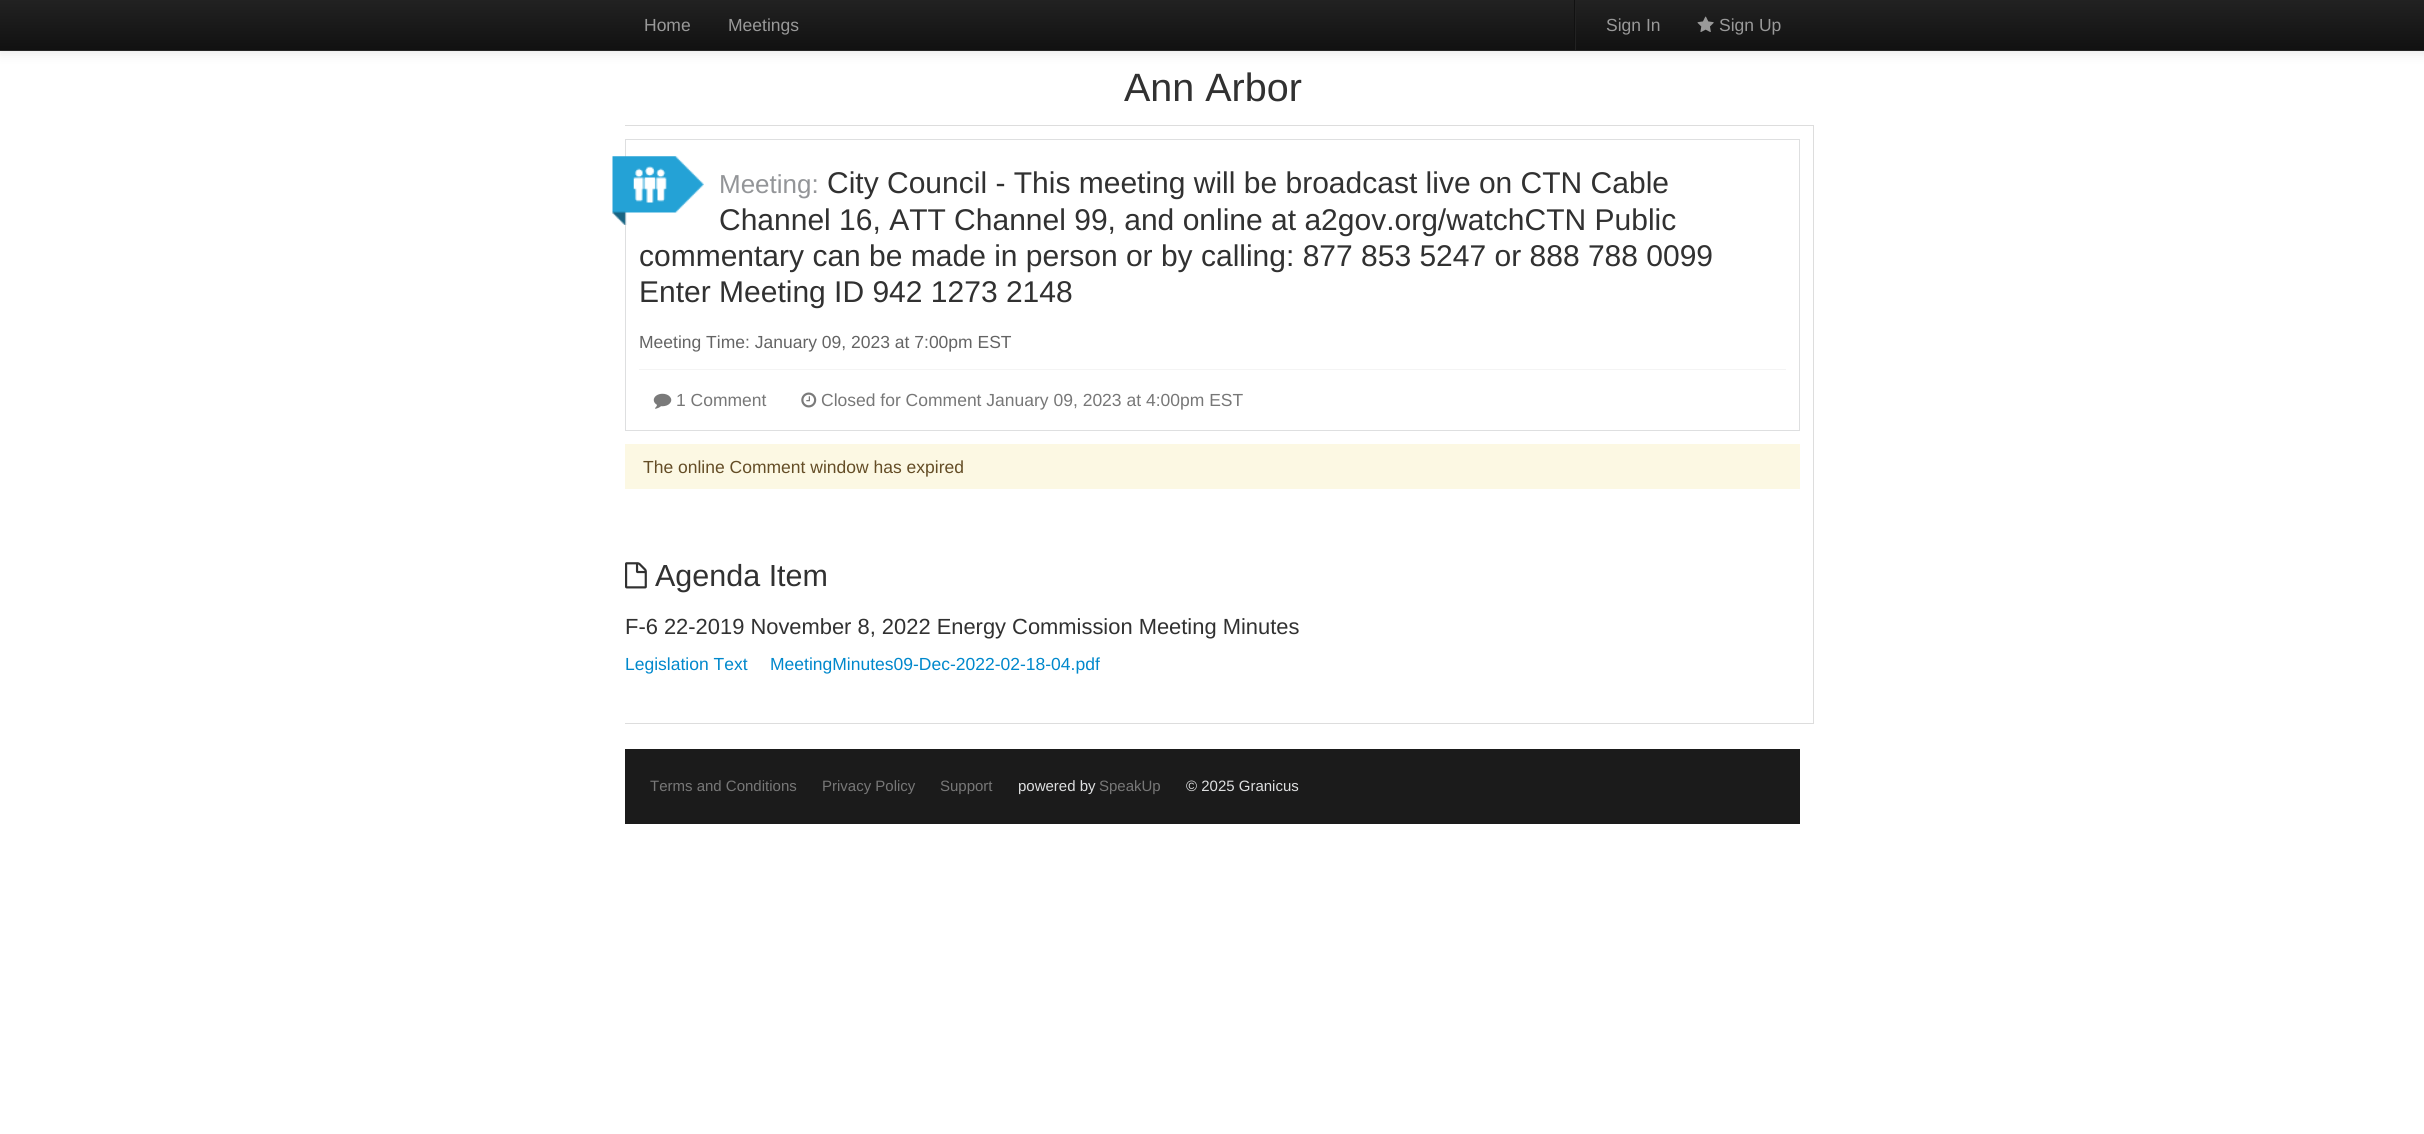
import math
import cairocffi as cairo

surface = cairo.ImageSurface(cairo.FORMAT_RGB24, 2424, 1134)
cr = cairo.Context(surface)
options = cairo.FontOptions()
options.set_hint_metrics(cairo.HINT_METRICS_OFF)
options.set_hint_style(cairo.HINT_STYLE_NONE)
cr.set_font_options(options)
cr.set_miter_limit(4)


def use_color(code):
    cr.set_source_rgb(*(v / 255 for v in bytes.fromhex(code[-6:])))


def round_rect(x, y, w, h, r):
    cr.new_sub_path()
    for i, (u, v) in enumerate([(x + w - r, y + h - r), (x + r, y + h - r), (x + r, y + r), (x + w - r, y + r)]):
        cr.arc(u, v, r, i * math.pi / 2, (i + 1) * math.pi / 2)
    cr.close_path()


def shadow(x, y, w, h, r, blur, alpha):
    cr.push_group_with_content(cairo.CONTENT_ALPHA)
    cr.set_operator(cairo.OPERATOR_SOURCE)
    for i in range(15, -16, -2):
        e = blur * i / 6
        if min(w, h) + 2 * e > 0:
            cr.set_source_rgba(0, 0, 0, alpha * math.erfc((i - 1) / 8.5) / 2)
            round_rect(x - e, y - e, w + 2 * e, h + 2 * e, max(0, min(r + e + blur * .6, min(w, h) / 2 + e)))
            cr.fill()
    cr.mask(cr.pop_group())


def picture(path, x, y, w, h):
    cr.save()
    cr.set_source_surface(cairo.ImageSurface.create_from_png(path), x, y)
    cr.rectangle(x, y, w, h)
    cr.fill()
    cr.restore()


use_color("#ffffff")
cr.paint()
use_color("#000000")
shadow(0, 1, 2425, 52, 0, 6, 0.1)
gradient = cairo.LinearGradient(1213, 0, 1213, 50)
gradient.add_color_stop_rgba(0, 0.133, 0.133, 0.133, 1)
gradient.add_color_stop_rgba(1, 0.067, 0.067, 0.067, 1)
cr.set_source(gradient)
cr.rectangle(0, 0, 2424, 50)
cr.fill()
use_color("#252525")
cr.rectangle(0, 50, 2424, 1)
cr.fill()
cr.select_font_face("Liberation Sans")
cr.set_font_size(17.5)
use_color("#999999")
cr.move_to(644, 31)
cr.show_text("Home")
cr.move_to(728, 31)
cr.show_text("Meetings")
use_color("#222222")
cr.rectangle(1575, 0, 1, 50)
cr.fill()
use_color("#111111")
cr.rectangle(1574, 0, 1, 50)
cr.fill()
use_color("#999999")
cr.move_to(1606, 31)
cr.show_text("Sign In")
picture("img1.png", 1697, 16, 17, 16)
cr.move_to(1719, 31)
cr.show_text("Sign Up")
cr.set_font_size(39.5)
use_color("#313131")
cr.move_to(1124, 101)
cr.show_text("Ann Arbor")
use_color("#dddddd")
cr.rectangle(625, 125, 1189, 1)
cr.fill()
cr.rectangle(1813, 125, 1, 599)
cr.fill()
cr.rectangle(625, 723, 1189, 1)
cr.fill()
cr.rectangle(625.5, 139.5, 1174, 291)
use_color("#dedfe0")
cr.set_line_width(1)
cr.stroke()
picture("img2.png", 612, 156, 92, 69)
cr.set_font_size(26)
use_color("#939598")
cr.move_to(719, 193)
cr.show_text("Meeting:")
cr.set_font_size(30)
use_color("#313131")
cr.move_to(827, 193)
cr.show_text("City Council - This meeting will be broadcast live on CTN Cable")
cr.move_to(719, 230)
cr.show_text("Channel 16, ATT Channel 99, and online at a2gov.org/watchCTN Public")
cr.move_to(639, 266)
cr.show_text("commentary can be made in person or by calling: 877 853 5247 or 888 788 0099")
cr.move_to(639, 302)
cr.show_text("Enter Meeting ID 942 1273 2148")
cr.set_font_size(17.5)
use_color("#646464")
cr.move_to(639, 348)
cr.show_text("Meeting Time: January 09, 2023 at 7:00pm EST")
use_color("#f4f4f4")
cr.rectangle(639, 369, 1147, 1)
cr.fill()
picture("img3.png", 653, 393, 19, 16)
use_color("#777777")
cr.move_to(676, 406)
cr.show_text("1 Comment")
picture("img4.png", 801, 392, 16, 16)
cr.move_to(821, 406)
cr.show_text("Closed for Comment January 09, 2023 at 4:00pm EST")
use_color("#fcf8e3")
cr.rectangle(625, 444, 1175, 45)
cr.fill()
use_color("#644d26")
cr.move_to(643, 473)
cr.show_text("The online Comment window has expired")
picture("img5.png", 625, 562, 22, 27)
cr.set_font_size(30.5)
use_color("#313131")
cr.move_to(655, 586)
cr.show_text("Agenda Item")
cr.set_font_size(21.9)
cr.move_to(625, 634)
cr.show_text("F-6 22-2019 November 8, 2022 Energy Commission Meeting Minutes")
cr.set_font_size(17.5)
use_color("#0088cc")
cr.move_to(625, 670)
cr.show_text("Legislation Text")
cr.move_to(770, 670)
cr.show_text("MeetingMinutes09-Dec-2022-02-18-04.pdf")
use_color("#1b1b1b")
cr.rectangle(625, 749, 1175, 75)
cr.fill()
cr.set_font_size(15)
use_color("#777777")
cr.move_to(650, 791)
cr.show_text("Terms and Conditions")
cr.move_to(822, 791)
cr.show_text("Privacy Policy")
cr.move_to(940, 791)
cr.show_text("Support")
use_color("#dedfe0")
cr.move_to(1018, 791)
cr.show_text("powered by")
use_color("#777777")
cr.move_to(1099, 791)
cr.show_text("SpeakUp")
use_color("#dedfe0")
cr.move_to(1186, 791)
cr.show_text("© 2025 Granicus")
surface.write_to_png("result.png")
